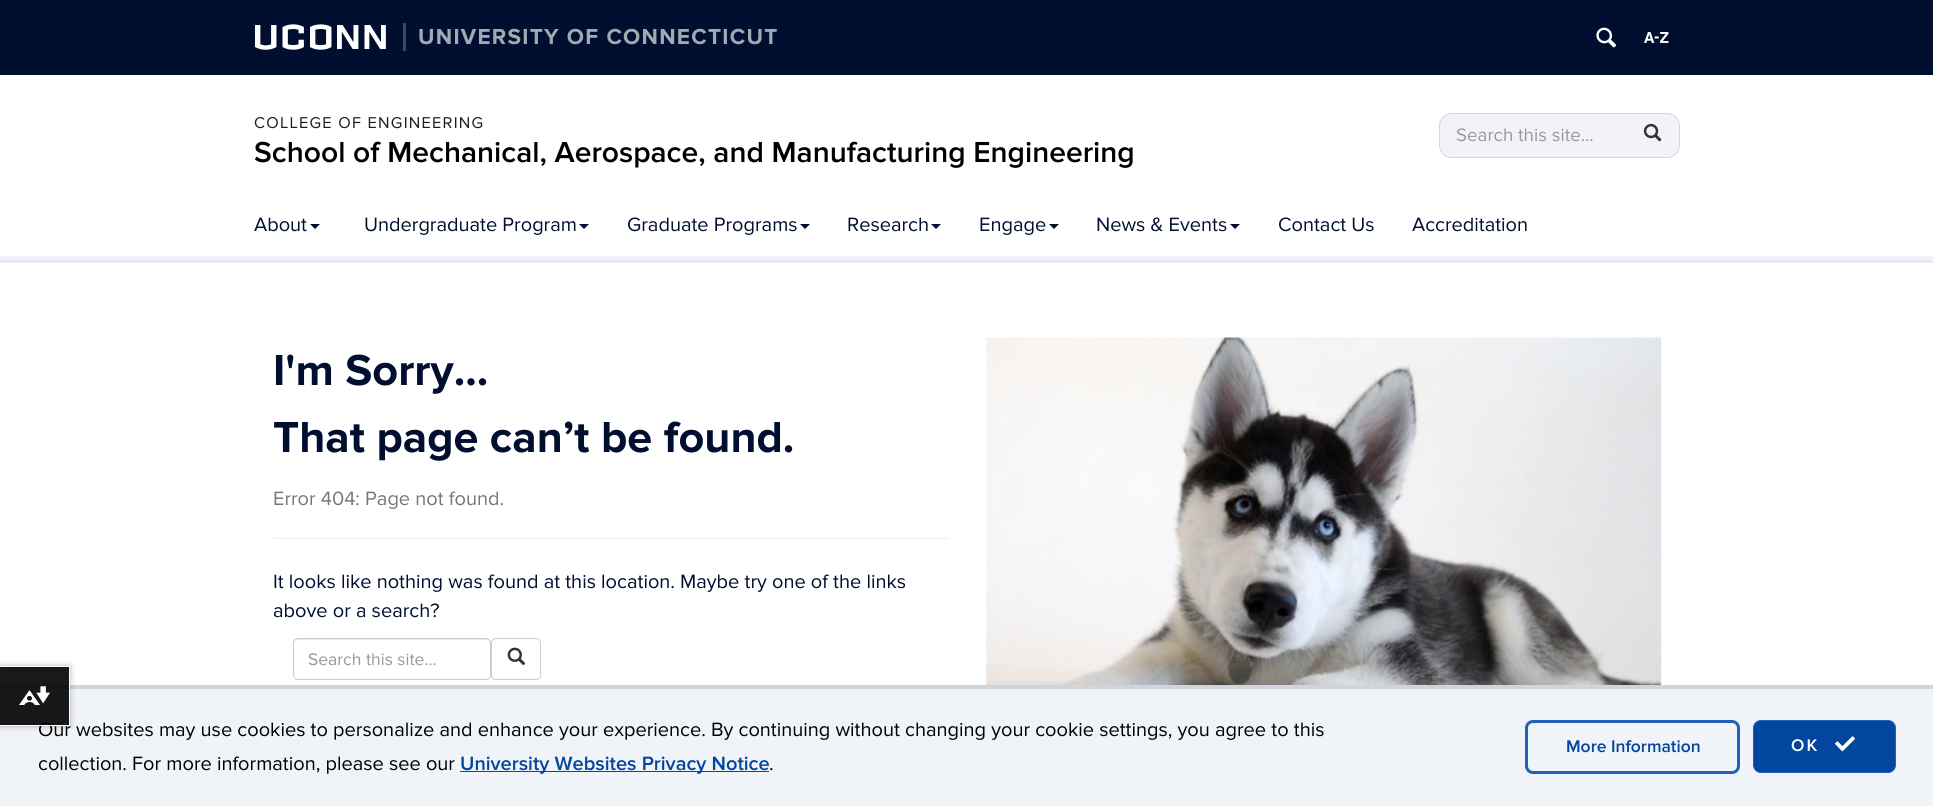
import math
import cairocffi as cairo

surface = cairo.ImageSurface(cairo.FORMAT_RGB24, 1933, 806)
cr = cairo.Context(surface)
options = cairo.FontOptions()
options.set_hint_metrics(cairo.HINT_METRICS_OFF)
options.set_hint_style(cairo.HINT_STYLE_NONE)
cr.set_font_options(options)
cr.set_miter_limit(4)


def use_color(code):
    cr.set_source_rgb(*(v / 255 for v in bytes.fromhex(code[-6:])))


def spaced_text(x, y, s, letter, word):
    cr.move_to(x, y)
    for ch in s:
        cr.show_text(ch)
        cr.rel_move_to(letter + word * (ch == ' '), 0)


def round_rect(x, y, w, h, r):
    cr.new_sub_path()
    for i, (u, v) in enumerate([(x + w - r, y + h - r), (x + r, y + h - r), (x + r, y + r), (x + w - r, y + r)]):
        cr.arc(u, v, r, i * math.pi / 2, (i + 1) * math.pi / 2)
    cr.close_path()


def shadow(x, y, w, h, r, blur, alpha):
    cr.push_group_with_content(cairo.CONTENT_ALPHA)
    cr.set_operator(cairo.OPERATOR_SOURCE)
    for i in range(15, -16, -2):
        e = blur * i / 6
        if min(w, h) + 2 * e > 0:
            cr.set_source_rgba(0, 0, 0, alpha * math.erfc((i - 1) / 8.5) / 2)
            round_rect(x - e, y - e, w + 2 * e, h + 2 * e, max(0, min(r + e + blur * .6, min(w, h) / 2 + e)))
            cr.fill()
    cr.mask(cr.pop_group())


def picture(path, x, y, w, h):
    cr.save()
    cr.set_source_surface(cairo.ImageSurface.create_from_png(path), x, y)
    cr.rectangle(x, y, w, h)
    cr.fill()
    cr.restore()


use_color("#ffffff")
cr.paint()
use_color("#000e2f")
cr.rectangle(0, 0, 1933, 75)
cr.fill()
cr.select_font_face("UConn")
cr.set_font_size(40)
use_color("#ffffff")
spaced_text(255, 49, "UCONN", 3.75, 0)
cr.select_font_face("Proxima Nova", cairo.FONT_SLANT_NORMAL, cairo.FONT_WEIGHT_BOLD)
cr.set_font_size(22.5)
use_color("#9faab2")
spaced_text(418, 44, "UNIVERSITY OF CONNECTICUT", 1.25, 0)
use_color("#3f4760")
cr.rectangle(403, 23, 3, 28)
cr.fill()
picture("img1.png", 1596, 27, 21, 21)
picture("img2.png", 1644, 32, 25, 11)
cr.select_font_face("Proxima Nova")
cr.set_font_size(16.25)
use_color("#1c1c1c")
spaced_text(254, 128, "COLLEGE OF ENGINEERING", 1.25, 0)
cr.select_font_face("Proxima Nova SemiBold")
cr.set_font_size(30)
use_color("#000000")
cr.move_to(254, 162)
cr.show_text("School of Mechanical, Aerospace, and Manufacturing Engineering")
use_color("#f1f3f8")
round_rect(1439.5, 113.5, 240, 44, 12.5)
cr.fill_preserve()
use_color("#ced5e6")
cr.set_line_width(1)
cr.stroke()
cr.select_font_face("Proxima Nova")
cr.set_font_size(18.75)
use_color("#999999")
cr.move_to(1456, 141)
cr.show_text("Search this site...")
picture("img3.png", 1643, 123, 19, 19)
cr.set_font_size(20)
use_color("#000e2f")
cr.move_to(254, 231)
cr.show_text("About")
cr.new_path()
cr.move_to(310, 224)
cr.line_to(320, 224)
cr.line_to(315, 229)
cr.close_path()
cr.fill()
cr.move_to(364, 231)
cr.show_text("Undergraduate Program")
cr.new_path()
cr.move_to(579, 224)
cr.line_to(589, 224)
cr.line_to(584, 229)
cr.close_path()
cr.fill()
cr.move_to(627, 231)
cr.show_text("Graduate Programs")
cr.new_path()
cr.move_to(800, 224)
cr.line_to(810, 224)
cr.line_to(805, 229)
cr.close_path()
cr.fill()
cr.move_to(847, 231)
cr.show_text("Research")
cr.new_path()
cr.move_to(931, 224)
cr.line_to(941, 224)
cr.line_to(936, 229)
cr.close_path()
cr.fill()
cr.move_to(979, 231)
cr.show_text("Engage")
cr.new_path()
cr.move_to(1049, 224)
cr.line_to(1059, 224)
cr.line_to(1054, 229)
cr.close_path()
cr.fill()
cr.move_to(1096, 231)
cr.show_text("News & Events")
cr.new_path()
cr.move_to(1230, 224)
cr.line_to(1240, 224)
cr.line_to(1235, 229)
cr.close_path()
cr.fill()
cr.move_to(1278, 231)
cr.show_text("Contact Us")
cr.move_to(1412, 231)
cr.show_text("Accreditation")
use_color("#f1f3f8")
cr.rectangle(0, 256, 1933, 4)
cr.fill()
use_color("#e7eaf2")
cr.rectangle(0, 260, 1933, 3)
cr.fill()
use_color("#eeeeee")
cr.rectangle(274, 538, 675, 1)
cr.fill()
cr.select_font_face("Proxima Nova", cairo.FONT_SLANT_NORMAL, cairo.FONT_WEIGHT_BOLD)
cr.set_font_size(45)
use_color("#000e2f")
cr.move_to(273, 385)
cr.show_text("I'm Sorry...")
cr.move_to(273, 452)
cr.show_text("That page can’t be found.")
cr.select_font_face("Proxima Nova")
cr.set_font_size(20)
use_color("#777777")
cr.move_to(273, 505)
cr.show_text("Error 404: Page not found.")
use_color("#000e2f")
cr.move_to(273, 588)
cr.show_text("It looks like nothing was found at this location. Maybe try one of the links")
cr.move_to(273, 617)
cr.show_text("above or a search?")
use_color("#ececec")
cr.new_path()
cr.move_to(298, 640)
cr.line_to(486, 640)
cr.curve_to(488, 640, 490, 642, 490, 644)
cr.line_to(490, 643)
cr.curve_to(490, 641, 488, 639, 486, 639)
cr.line_to(298, 639)
cr.curve_to(296, 639, 294, 641, 294, 643)
cr.line_to(294, 644)
cr.curve_to(294, 642, 295, 640, 298, 640)
cr.close_path()
cr.fill()
round_rect(293.5, 638.5, 197, 41, 4.5)
use_color("#cccccc")
cr.stroke()
cr.set_font_size(17.5)
use_color("#999999")
cr.move_to(308, 665)
cr.show_text("Search this site...")
round_rect(491.5, 638.5, 49, 41, 4.5)
use_color("#cccccc")
cr.stroke()
picture("img4.png", 507, 647, 19, 19)
picture("img5.png", 986, 337, 676, 348)
use_color("#f0f3f7")
cr.rectangle(0, 689, 1933, 117)
cr.fill()
use_color("#cfd5dd")
cr.rectangle(0, 685, 1933, 4)
cr.fill()
cr.save()
cr.set_fill_rule(cairo.FILL_RULE_EVEN_ODD)
cr.new_path()
cr.move_to(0, 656)
cr.line_to(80, 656)
cr.line_to(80, 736)
cr.line_to(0, 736)
cr.close_path()
cr.move_to(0, 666)
cr.line_to(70, 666)
cr.line_to(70, 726)
cr.line_to(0, 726)
cr.close_path()
cr.clip()
use_color("#000000")
shadow(0, 666, 70, 60, 0, 3, 0.3)
cr.restore()
cr.set_font_size(20)
use_color("#000000")
cr.move_to(38, 736)
cr.show_text("Our websites may use cookies to personalize and enhance your experience. By continuing without changing your cookie settings, you agree to this")
cr.set_source_rgba(0, 0, 0, 0.9)
cr.rectangle(0, 667, 69, 58)
cr.fill()
use_color("#ffffff")
cr.rectangle(0, 666, 70, 1)
cr.fill()
cr.rectangle(69, 685, 1, 41)
cr.fill()
cr.rectangle(0, 725, 70, 1)
cr.fill()
picture("img6.png", 19, 686, 31, 19)
use_color("#000000")
cr.move_to(38, 770)
cr.show_text("collection. For more information, please see our")
use_color("#03469f")
cr.rectangle(460, 771, 309, 1)
cr.fill()
cr.select_font_face("Proxima Nova SemiBold")
cr.move_to(460, 770)
cr.show_text("University Websites Privacy Notice")
cr.select_font_face("Proxima Nova")
use_color("#000000")
cr.move_to(769, 770)
cr.show_text(".")
round_rect(1526.5, 721.5, 212, 51, 6.5)
use_color("#2061b6")
cr.set_line_width(3)
cr.stroke()
cr.select_font_face("Proxima Nova SemiBold")
cr.set_font_size(17.5)
use_color("#03469f")
cr.move_to(1566, 752)
cr.show_text("More Information")
round_rect(1753.5, 720.5, 142, 52, 7.5)
cr.fill_preserve()
use_color("#2061b6")
cr.set_line_width(1)
cr.stroke()
use_color("#ffffff")
spaced_text(1791, 751, "OK", 2, 0)
picture("img7.png", 1835, 736, 20, 16)
surface.write_to_png("result.png")
